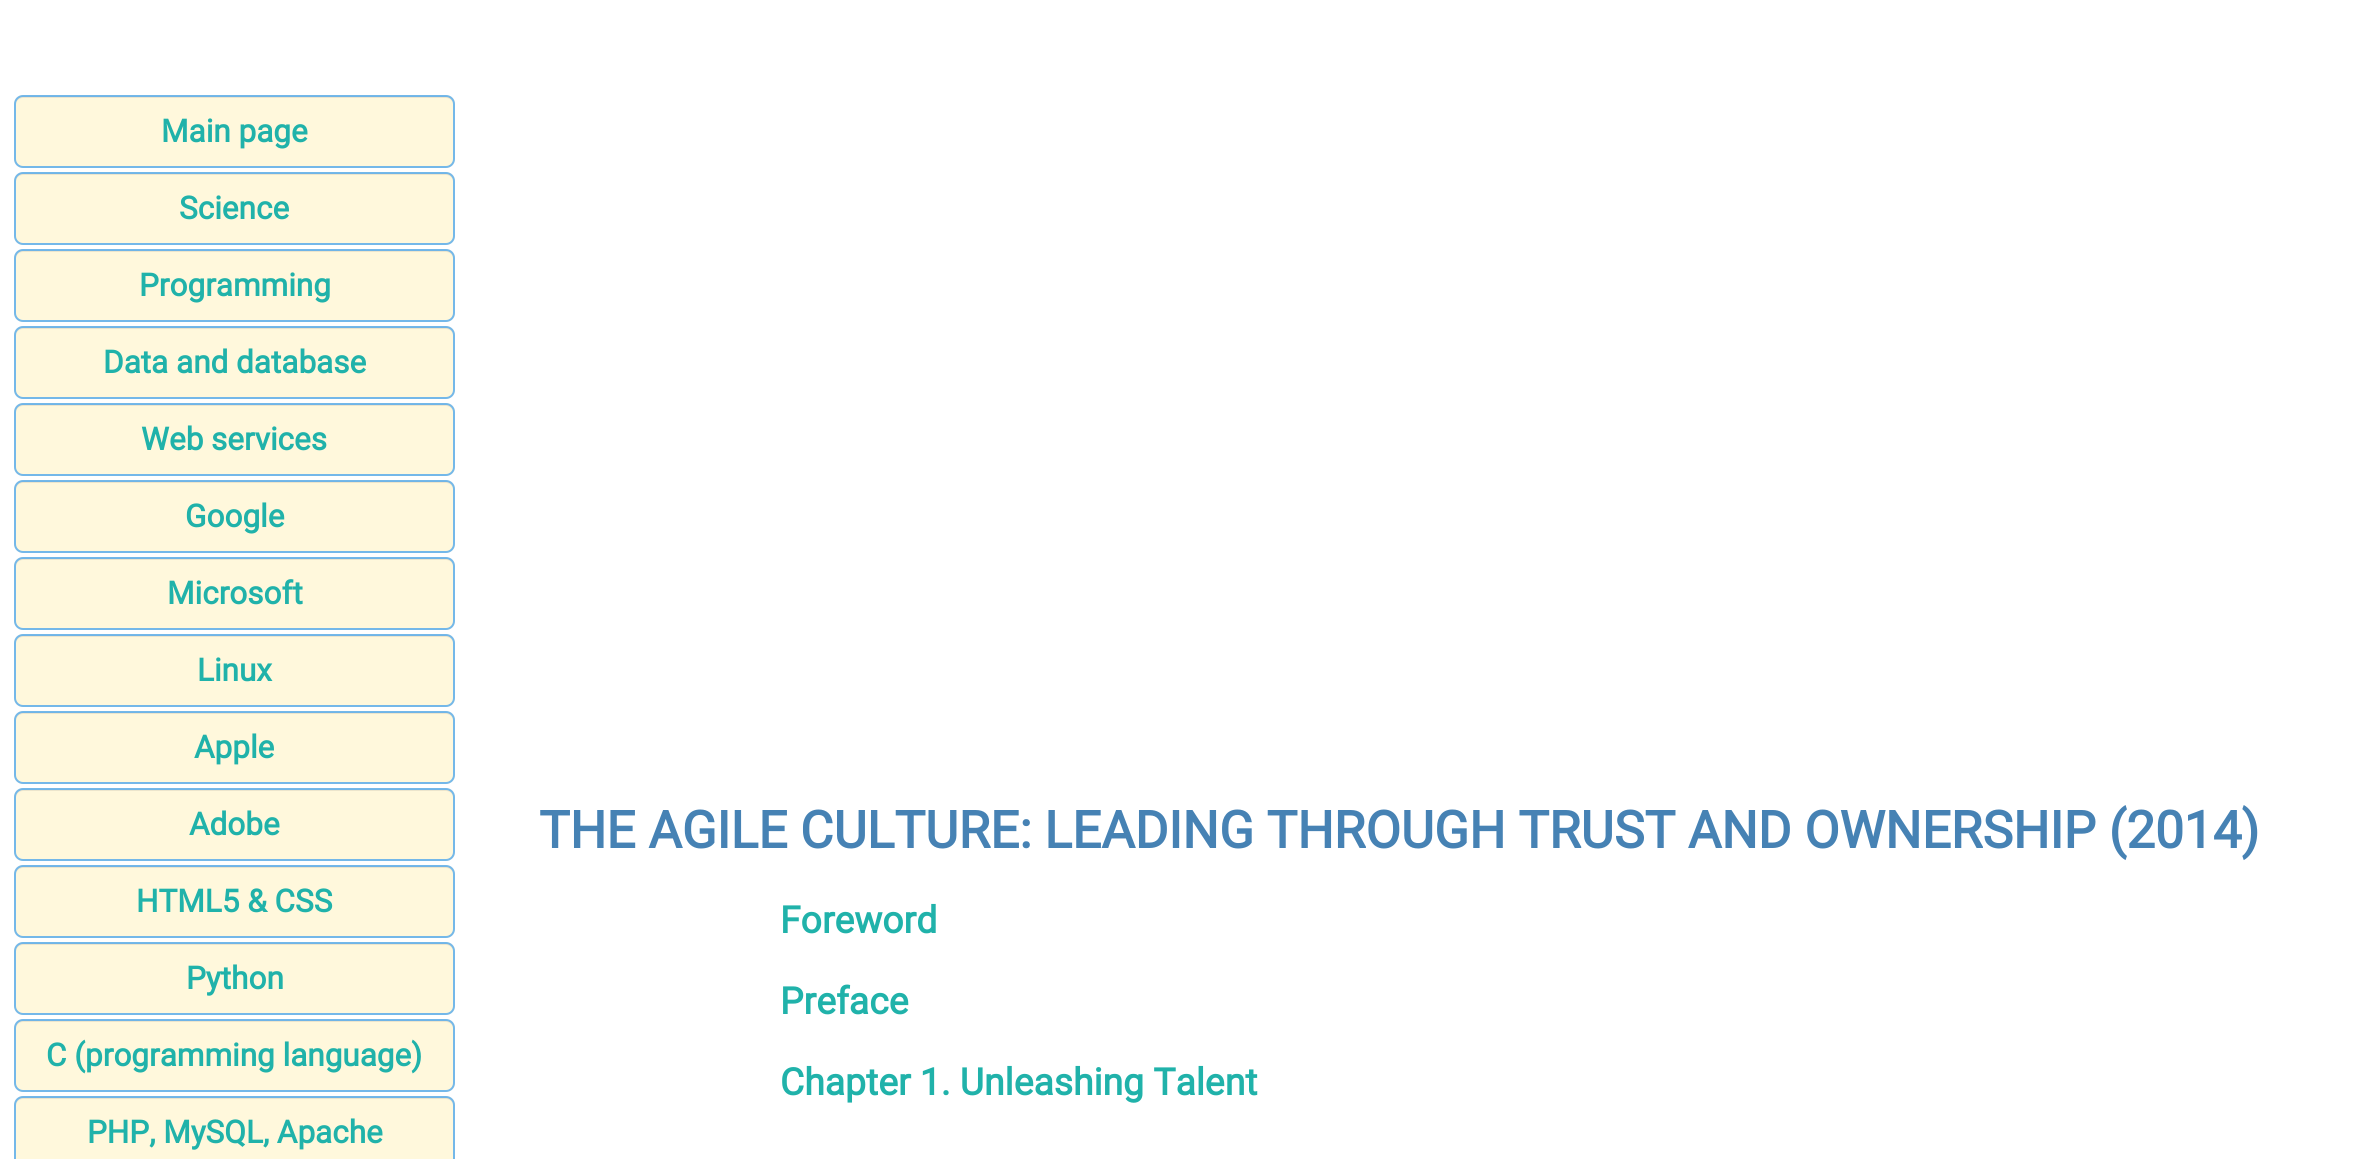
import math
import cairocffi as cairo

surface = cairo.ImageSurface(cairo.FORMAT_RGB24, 2356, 1159)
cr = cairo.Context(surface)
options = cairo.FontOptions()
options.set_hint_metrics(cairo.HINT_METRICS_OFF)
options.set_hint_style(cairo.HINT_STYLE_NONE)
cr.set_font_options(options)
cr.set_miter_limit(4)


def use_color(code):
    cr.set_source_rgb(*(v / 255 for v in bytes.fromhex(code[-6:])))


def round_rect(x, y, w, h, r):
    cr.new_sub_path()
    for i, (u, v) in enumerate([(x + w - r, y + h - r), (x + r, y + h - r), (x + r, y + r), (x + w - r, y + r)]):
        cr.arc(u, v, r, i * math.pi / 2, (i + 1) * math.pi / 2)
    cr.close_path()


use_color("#ffffff")
cr.paint()
use_color("#fff8dc")
round_rect(14, 95, 441, 73, 9)
cr.fill()
use_color("#ece5cc")
cr.new_path()
cr.move_to(23, 98)
cr.line_to(446, 98)
cr.curve_to(450, 98, 453, 101, 453, 105)
cr.curve_to(453, 101, 451, 96, 446, 96)
cr.line_to(23, 96)
cr.curve_to(18, 96, 16, 101, 16, 105)
cr.curve_to(16, 101, 19, 98, 23, 98)
cr.close_path()
cr.fill()
round_rect(15, 96, 439, 71, 8)
cr.set_source_rgba(0.322, 0.659, 0.925, 0.8)
cr.stroke()
cr.select_font_face("Roboto", cairo.FONT_SLANT_NORMAL, cairo.FONT_WEIGHT_BOLD)
cr.set_font_size(31.5)
use_color("#20b2aa")
cr.move_to(161, 142)
cr.show_text("Main page")
use_color("#fff8dc")
round_rect(14, 172, 441, 73, 9)
cr.fill()
use_color("#ece5cc")
cr.new_path()
cr.move_to(23, 175)
cr.line_to(446, 175)
cr.curve_to(450, 175, 453, 178, 453, 182)
cr.curve_to(453, 178, 451, 173, 446, 173)
cr.line_to(23, 173)
cr.curve_to(18, 173, 16, 178, 16, 182)
cr.curve_to(16, 178, 19, 175, 23, 175)
cr.close_path()
cr.fill()
round_rect(15, 173, 439, 71, 8)
cr.set_source_rgba(0.322, 0.659, 0.925, 0.8)
cr.stroke()
use_color("#20b2aa")
cr.move_to(179, 219)
cr.show_text("Science")
use_color("#fff8dc")
round_rect(14, 249, 441, 73, 9)
cr.fill()
use_color("#ece5cc")
cr.new_path()
cr.move_to(23, 252)
cr.line_to(446, 252)
cr.curve_to(450, 252, 453, 255, 453, 259)
cr.curve_to(453, 255, 451, 250, 446, 250)
cr.line_to(23, 250)
cr.curve_to(18, 250, 16, 255, 16, 259)
cr.curve_to(16, 255, 19, 252, 23, 252)
cr.close_path()
cr.fill()
round_rect(15, 250, 439, 71, 8)
cr.set_source_rgba(0.322, 0.659, 0.925, 0.8)
cr.stroke()
use_color("#20b2aa")
cr.move_to(139, 296)
cr.show_text("Programming")
use_color("#fff8dc")
round_rect(14, 326, 441, 73, 9)
cr.fill()
use_color("#ece5cc")
cr.new_path()
cr.move_to(23, 329)
cr.line_to(446, 329)
cr.curve_to(450, 329, 453, 332, 453, 336)
cr.curve_to(453, 332, 451, 327, 446, 327)
cr.line_to(23, 327)
cr.curve_to(18, 327, 16, 332, 16, 336)
cr.curve_to(16, 332, 19, 329, 23, 329)
cr.close_path()
cr.fill()
round_rect(15, 327, 439, 71, 8)
cr.set_source_rgba(0.322, 0.659, 0.925, 0.8)
cr.stroke()
use_color("#20b2aa")
cr.move_to(103, 373)
cr.show_text("Data and database")
use_color("#fff8dc")
round_rect(14, 403, 441, 73, 9)
cr.fill()
use_color("#ece5cc")
cr.new_path()
cr.move_to(23, 406)
cr.line_to(446, 406)
cr.curve_to(450, 406, 453, 409, 453, 413)
cr.curve_to(453, 409, 451, 404, 446, 404)
cr.line_to(23, 404)
cr.curve_to(18, 404, 16, 409, 16, 413)
cr.curve_to(16, 409, 19, 406, 23, 406)
cr.close_path()
cr.fill()
round_rect(15, 404, 439, 71, 8)
cr.set_source_rgba(0.322, 0.659, 0.925, 0.8)
cr.stroke()
use_color("#20b2aa")
cr.move_to(141, 450)
cr.show_text("Web services")
use_color("#fff8dc")
round_rect(14, 480, 441, 73, 9)
cr.fill()
use_color("#ece5cc")
cr.new_path()
cr.move_to(23, 483)
cr.line_to(446, 483)
cr.curve_to(450, 483, 453, 486, 453, 490)
cr.curve_to(453, 486, 451, 481, 446, 481)
cr.line_to(23, 481)
cr.curve_to(18, 481, 16, 486, 16, 490)
cr.curve_to(16, 486, 19, 483, 23, 483)
cr.close_path()
cr.fill()
round_rect(15, 481, 439, 71, 8)
cr.set_source_rgba(0.322, 0.659, 0.925, 0.8)
cr.stroke()
use_color("#20b2aa")
cr.move_to(185, 527)
cr.show_text("Google")
use_color("#fff8dc")
round_rect(14, 557, 441, 73, 9)
cr.fill()
use_color("#ece5cc")
cr.new_path()
cr.move_to(23, 560)
cr.line_to(446, 560)
cr.curve_to(450, 560, 453, 563, 453, 567)
cr.curve_to(453, 563, 451, 558, 446, 558)
cr.line_to(23, 558)
cr.curve_to(18, 558, 16, 563, 16, 567)
cr.curve_to(16, 563, 19, 560, 23, 560)
cr.close_path()
cr.fill()
round_rect(15, 558, 439, 71, 8)
cr.set_source_rgba(0.322, 0.659, 0.925, 0.8)
cr.stroke()
use_color("#20b2aa")
cr.move_to(167, 604)
cr.show_text("Microsoft")
use_color("#fff8dc")
round_rect(14, 634, 441, 73, 9)
cr.fill()
use_color("#ece5cc")
cr.new_path()
cr.move_to(23, 637)
cr.line_to(446, 637)
cr.curve_to(450, 637, 453, 640, 453, 644)
cr.curve_to(453, 640, 451, 635, 446, 635)
cr.line_to(23, 635)
cr.curve_to(18, 635, 16, 640, 16, 644)
cr.curve_to(16, 640, 19, 637, 23, 637)
cr.close_path()
cr.fill()
round_rect(15, 635, 439, 71, 8)
cr.set_source_rgba(0.322, 0.659, 0.925, 0.8)
cr.stroke()
use_color("#20b2aa")
cr.move_to(197, 681)
cr.show_text("Linux")
use_color("#fff8dc")
round_rect(14, 711, 441, 73, 9)
cr.fill()
use_color("#ece5cc")
cr.new_path()
cr.move_to(23, 714)
cr.line_to(446, 714)
cr.curve_to(450, 714, 453, 717, 453, 721)
cr.curve_to(453, 717, 451, 712, 446, 712)
cr.line_to(23, 712)
cr.curve_to(18, 712, 16, 717, 16, 721)
cr.curve_to(16, 717, 19, 714, 23, 714)
cr.close_path()
cr.fill()
round_rect(15, 712, 439, 71, 8)
cr.set_source_rgba(0.322, 0.659, 0.925, 0.8)
cr.stroke()
use_color("#20b2aa")
cr.move_to(194, 758)
cr.show_text("Apple")
use_color("#fff8dc")
round_rect(14, 788, 441, 73, 9)
cr.fill()
use_color("#ece5cc")
cr.new_path()
cr.move_to(23, 791)
cr.line_to(446, 791)
cr.curve_to(450, 791, 453, 794, 453, 798)
cr.curve_to(453, 794, 451, 789, 446, 789)
cr.line_to(23, 789)
cr.curve_to(18, 789, 16, 794, 16, 798)
cr.curve_to(16, 794, 19, 791, 23, 791)
cr.close_path()
cr.fill()
round_rect(15, 789, 439, 71, 8)
cr.set_source_rgba(0.322, 0.659, 0.925, 0.8)
cr.stroke()
use_color("#20b2aa")
cr.move_to(189, 835)
cr.show_text("Adobe")
use_color("#fff8dc")
round_rect(14, 865, 441, 73, 9)
cr.fill()
use_color("#ece5cc")
cr.new_path()
cr.move_to(23, 868)
cr.line_to(446, 868)
cr.curve_to(450, 868, 453, 871, 453, 875)
cr.curve_to(453, 871, 451, 866, 446, 866)
cr.line_to(23, 866)
cr.curve_to(18, 866, 16, 871, 16, 875)
cr.curve_to(16, 871, 19, 868, 23, 868)
cr.close_path()
cr.fill()
round_rect(15, 866, 439, 71, 8)
cr.set_source_rgba(0.322, 0.659, 0.925, 0.8)
cr.stroke()
use_color("#20b2aa")
cr.move_to(136, 912)
cr.show_text("HTML5 & CSS")
use_color("#fff8dc")
round_rect(14, 942, 441, 73, 9)
cr.fill()
use_color("#ece5cc")
cr.new_path()
cr.move_to(23, 945)
cr.line_to(446, 945)
cr.curve_to(450, 945, 453, 948, 453, 952)
cr.curve_to(453, 948, 451, 943, 446, 943)
cr.line_to(23, 943)
cr.curve_to(18, 943, 16, 948, 16, 952)
cr.curve_to(16, 948, 19, 945, 23, 945)
cr.close_path()
cr.fill()
round_rect(15, 943, 439, 71, 8)
cr.set_source_rgba(0.322, 0.659, 0.925, 0.8)
cr.stroke()
use_color("#20b2aa")
cr.move_to(186, 989)
cr.show_text("Python")
use_color("#fff8dc")
round_rect(14, 1019, 441, 73, 9)
cr.fill()
use_color("#ece5cc")
cr.new_path()
cr.move_to(23, 1022)
cr.line_to(446, 1022)
cr.curve_to(450, 1022, 453, 1025, 453, 1029)
cr.curve_to(453, 1025, 451, 1020, 446, 1020)
cr.line_to(23, 1020)
cr.curve_to(18, 1020, 16, 1025, 16, 1029)
cr.curve_to(16, 1025, 19, 1022, 23, 1022)
cr.close_path()
cr.fill()
round_rect(15, 1020, 439, 71, 8)
cr.set_source_rgba(0.322, 0.659, 0.925, 0.8)
cr.stroke()
use_color("#20b2aa")
cr.move_to(46, 1066)
cr.show_text("C (programming language)")
use_color("#fff8dc")
round_rect(14, 1096, 441, 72, 9)
cr.fill()
use_color("#ece5cc")
cr.new_path()
cr.move_to(23, 1099)
cr.line_to(446, 1099)
cr.curve_to(450, 1099, 453, 1102, 453, 1106)
cr.curve_to(453, 1102, 451, 1097, 446, 1097)
cr.line_to(23, 1097)
cr.curve_to(18, 1097, 16, 1102, 16, 1106)
cr.curve_to(16, 1102, 19, 1099, 23, 1099)
cr.close_path()
cr.fill()
round_rect(15, 1097, 439, 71, 8)
cr.set_source_rgba(0.322, 0.659, 0.925, 0.8)
cr.stroke()
use_color("#20b2aa")
cr.move_to(87, 1143)
cr.show_text("PHP, MySQL, Apache")
cr.set_font_size(51.35)
use_color("#4682b4")
cr.move_to(539, 848)
cr.show_text("THE AGILE CULTURE: LEADING THROUGH TRUST AND OWNERSHIP (2014)")
cr.set_font_size(37.3)
use_color("#20b2aa")
cr.move_to(780, 933)
cr.show_text("Foreword")
cr.move_to(780, 1014)
cr.show_text("Preface")
cr.move_to(780, 1095)
cr.show_text("Chapter 1. Unleashing Talent")
surface.write_to_png("result.png")
